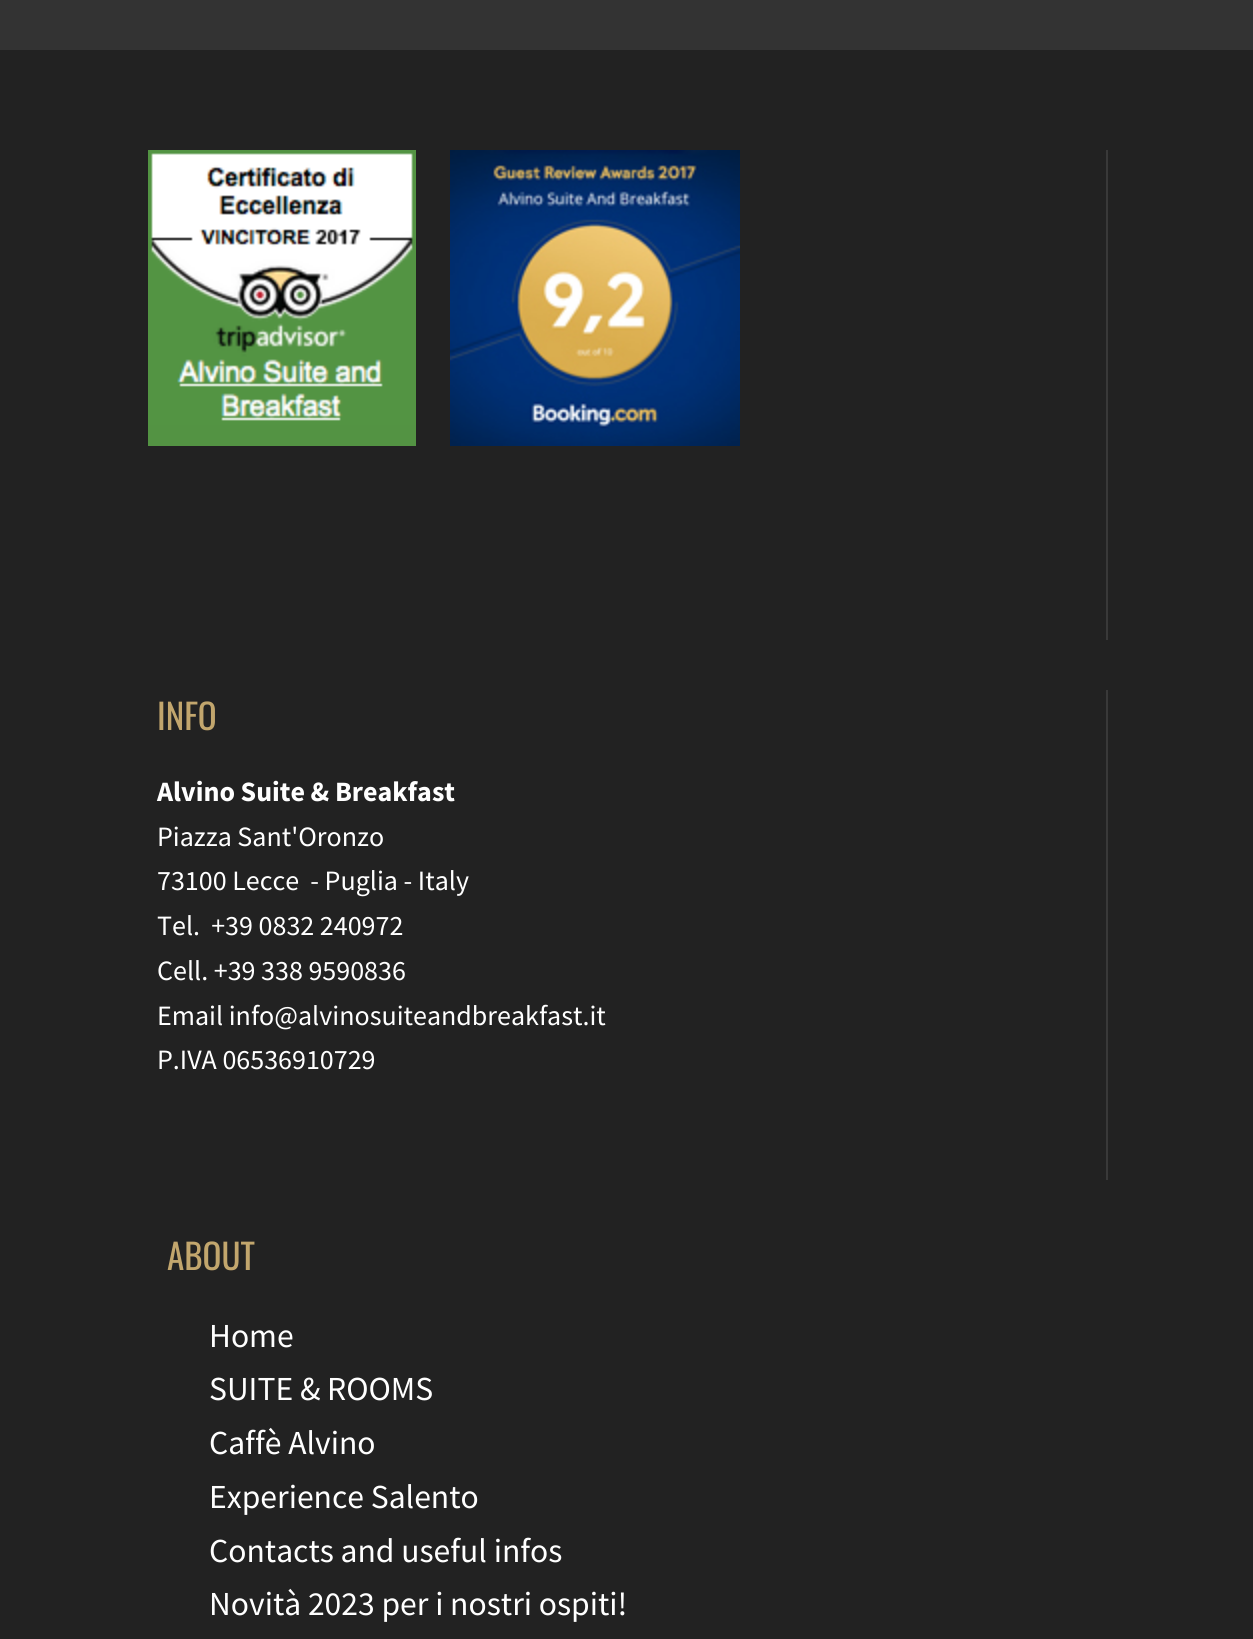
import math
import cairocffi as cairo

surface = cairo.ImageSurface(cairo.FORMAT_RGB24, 1253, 1639)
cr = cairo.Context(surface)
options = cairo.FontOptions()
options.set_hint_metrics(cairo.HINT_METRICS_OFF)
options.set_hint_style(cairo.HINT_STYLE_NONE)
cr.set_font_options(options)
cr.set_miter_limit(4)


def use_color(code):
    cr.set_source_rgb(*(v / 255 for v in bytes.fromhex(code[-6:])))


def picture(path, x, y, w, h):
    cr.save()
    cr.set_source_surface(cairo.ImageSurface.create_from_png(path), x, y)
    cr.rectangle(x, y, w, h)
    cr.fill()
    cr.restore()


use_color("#333333")
cr.paint()
use_color("#222222")
cr.rectangle(0, 50, 1253, 1589)
cr.fill()
use_color("#393939")
cr.rectangle(1106, 150, 2, 490)
cr.fill()
picture("img1.png", 148, 150, 268, 296)
picture("img2.png", 450, 150, 290, 296)
cr.rectangle(1106, 690, 2, 490)
cr.fill()
cr.select_font_face("Oswald")
cr.set_font_size(35)
use_color("#c2a66d")
cr.move_to(157, 730)
cr.show_text("INFO")
cr.select_font_face("Source Sans Pro", cairo.FONT_SLANT_NORMAL, cairo.FONT_WEIGHT_BOLD)
cr.set_font_size(28)
use_color("#ffffff")
cr.move_to(157, 801)
cr.show_text("Alvino Suite & Breakfast")
cr.select_font_face("Source Sans Pro")
cr.move_to(157, 846)
cr.show_text("Piazza Sant'Oronzo")
cr.move_to(157, 890)
cr.show_text("73100 Lecce  - Puglia - Italy")
cr.move_to(157, 935)
cr.show_text("Tel.  +39 0832 240972")
cr.move_to(157, 980)
cr.show_text("Cell. +39 338 9590836")
cr.move_to(157, 1025)
cr.show_text("Email info@alvinosuiteandbreakfast.it")
cr.move_to(157, 1069)
cr.show_text("P.IVA 06536910729")
cr.select_font_face("Oswald")
cr.set_font_size(35)
use_color("#c2a66d")
cr.move_to(167, 1270)
cr.show_text("ABOUT")
cr.select_font_face("Source Sans Pro")
cr.set_font_size(33.6)
use_color("#ffffff")
cr.move_to(209, 1347)
cr.show_text("Home")
cr.move_to(209, 1400)
cr.show_text("SUITE & ROOMS")
cr.move_to(209, 1454)
cr.show_text("Caffè Alvino")
cr.move_to(209, 1508)
cr.show_text("Experience Salento")
cr.move_to(209, 1562)
cr.show_text("Contacts and useful infos")
cr.move_to(209, 1615)
cr.show_text("Novità 2023 per i nostri ospiti!")
surface.write_to_png("result.png")
